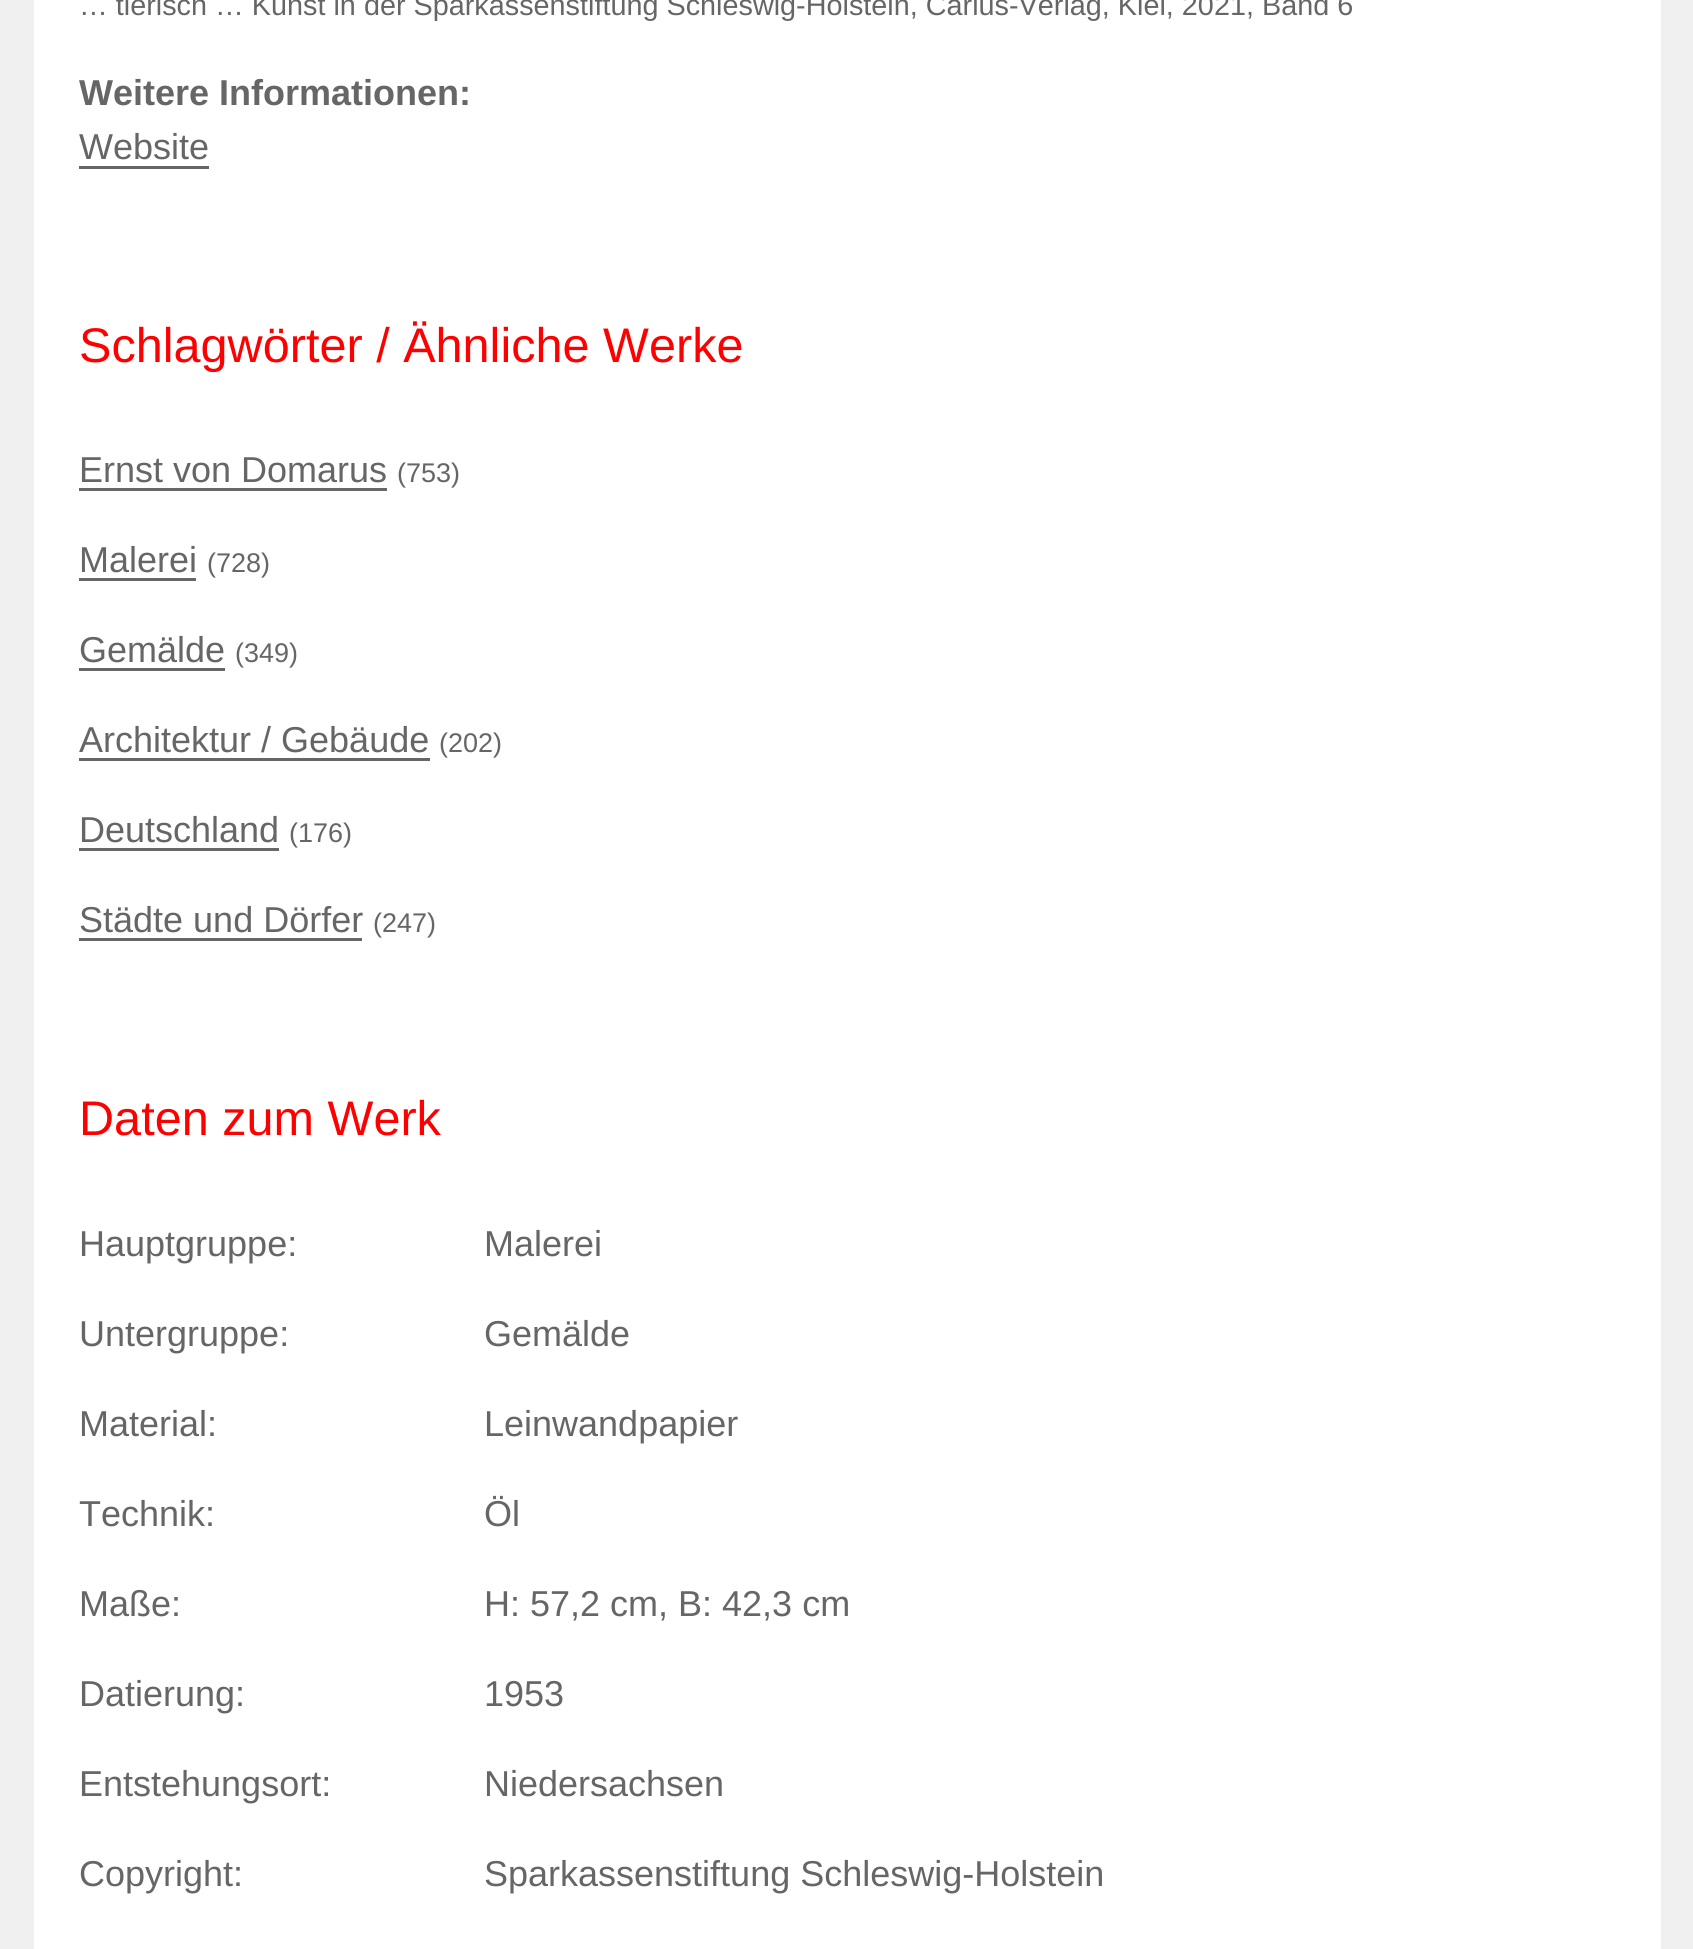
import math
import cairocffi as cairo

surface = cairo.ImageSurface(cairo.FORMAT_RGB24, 1693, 1949)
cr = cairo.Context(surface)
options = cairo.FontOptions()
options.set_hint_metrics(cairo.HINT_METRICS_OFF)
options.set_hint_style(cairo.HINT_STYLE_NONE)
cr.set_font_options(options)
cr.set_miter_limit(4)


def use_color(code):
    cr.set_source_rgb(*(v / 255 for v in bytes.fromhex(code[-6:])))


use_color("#f0f0f0")
cr.paint()
use_color("#ffffff")
cr.rectangle(34, 0, 1627, 1949)
cr.fill()
cr.select_font_face("Liberation Sans")
cr.set_font_size(28.8)
use_color("#666666")
cr.move_to(79, 15)
cr.show_text("… tierisch … Kunst in der Sparkassenstiftung Schleswig-Holstein, Carius-Verlag, Kiel, 2021, Band 6")
cr.select_font_face("Liberation Sans", cairo.FONT_SLANT_NORMAL, cairo.FONT_WEIGHT_BOLD)
cr.set_font_size(36)
cr.move_to(79, 105)
cr.show_text("Weitere Informationen:")
cr.select_font_face("Liberation Sans")
cr.move_to(79, 159)
cr.show_text("Website")
cr.rectangle(79, 166, 130, 3)
cr.fill()
cr.set_font_size(48.6)
use_color("#ff0000")
cr.move_to(79, 362)
cr.show_text("Schlagwörter / Ähnliche Werke")
cr.set_font_size(36)
use_color("#666666")
cr.move_to(79, 482)
cr.show_text("Ernst von Domarus")
cr.rectangle(79, 488, 308, 3)
cr.fill()
cr.set_font_size(27)
cr.move_to(397, 482)
cr.show_text("(753)")
cr.set_font_size(36)
cr.move_to(79, 572)
cr.show_text("Malerei")
cr.new_path()
cr.move_to(79, 578)
cr.line_to(79, 581)
cr.line_to(196, 581)
cr.line_to(196, 542)
cr.line_to(196, 578)
cr.close_path()
cr.fill()
cr.set_font_size(27)
cr.move_to(207, 572)
cr.show_text("(728)")
cr.set_font_size(36)
cr.move_to(79, 662)
cr.show_text("Gemälde")
cr.rectangle(79, 668, 146, 3)
cr.fill()
cr.set_font_size(27)
cr.move_to(235, 662)
cr.show_text("(349)")
cr.set_font_size(36)
cr.move_to(79, 752)
cr.show_text("Architektur / Gebäude")
cr.new_path()
cr.move_to(79, 758)
cr.line_to(79, 761)
cr.line_to(430, 761)
cr.line_to(430, 722)
cr.line_to(430, 758)
cr.close_path()
cr.fill()
cr.set_font_size(27)
cr.move_to(439, 752)
cr.show_text("(202)")
cr.set_font_size(36)
cr.move_to(79, 842)
cr.show_text("Deutschland")
cr.rectangle(79, 848, 200, 3)
cr.fill()
cr.set_font_size(27)
cr.move_to(289, 842)
cr.show_text("(176)")
cr.set_font_size(36)
cr.move_to(79, 932)
cr.show_text("Städte und Dörfer")
cr.rectangle(79, 938, 283, 3)
cr.fill()
cr.set_font_size(27)
cr.move_to(373, 932)
cr.show_text("(247)")
cr.set_font_size(48.6)
use_color("#ff0000")
cr.move_to(79, 1135)
cr.show_text("Daten zum Werk")
cr.set_font_size(36)
use_color("#666666")
cr.move_to(79, 1256)
cr.show_text("Hauptgruppe:")
cr.move_to(484, 1256)
cr.show_text("Malerei")
cr.move_to(79, 1346)
cr.show_text("Untergruppe:")
cr.move_to(484, 1346)
cr.show_text("Gemälde")
cr.move_to(79, 1436)
cr.show_text("Material:")
cr.move_to(484, 1436)
cr.show_text("Leinwandpapier")
cr.move_to(79, 1526)
cr.show_text("Technik:")
cr.move_to(484, 1526)
cr.show_text("Öl")
cr.move_to(79, 1616)
cr.show_text("Maße:")
cr.move_to(484, 1616)
cr.show_text("H: 57,2 cm, B: 42,3 cm")
cr.move_to(79, 1706)
cr.show_text("Datierung:")
cr.move_to(484, 1706)
cr.show_text("1953")
cr.move_to(79, 1796)
cr.show_text("Entstehungsort:")
cr.move_to(484, 1796)
cr.show_text("Niedersachsen")
cr.move_to(79, 1886)
cr.show_text("Copyright:")
cr.move_to(484, 1886)
cr.show_text("Sparkassenstiftung Schleswig-Holstein")
surface.write_to_png("result.png")
